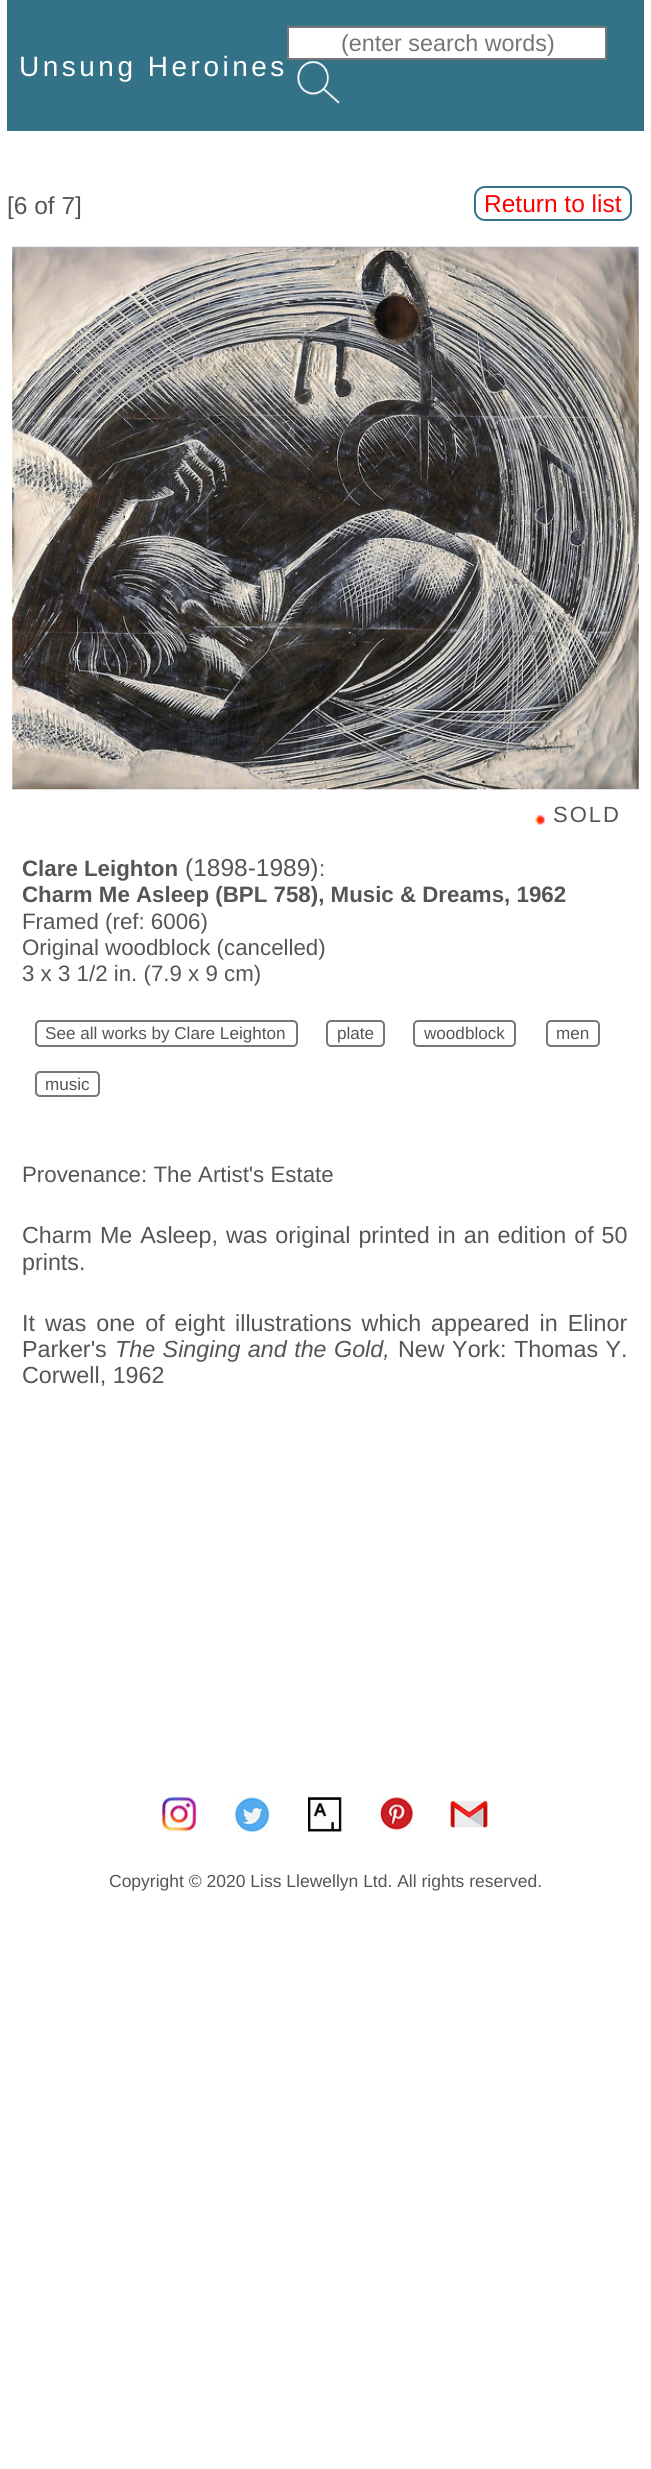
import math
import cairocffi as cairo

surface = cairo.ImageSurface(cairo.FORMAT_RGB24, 651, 2469)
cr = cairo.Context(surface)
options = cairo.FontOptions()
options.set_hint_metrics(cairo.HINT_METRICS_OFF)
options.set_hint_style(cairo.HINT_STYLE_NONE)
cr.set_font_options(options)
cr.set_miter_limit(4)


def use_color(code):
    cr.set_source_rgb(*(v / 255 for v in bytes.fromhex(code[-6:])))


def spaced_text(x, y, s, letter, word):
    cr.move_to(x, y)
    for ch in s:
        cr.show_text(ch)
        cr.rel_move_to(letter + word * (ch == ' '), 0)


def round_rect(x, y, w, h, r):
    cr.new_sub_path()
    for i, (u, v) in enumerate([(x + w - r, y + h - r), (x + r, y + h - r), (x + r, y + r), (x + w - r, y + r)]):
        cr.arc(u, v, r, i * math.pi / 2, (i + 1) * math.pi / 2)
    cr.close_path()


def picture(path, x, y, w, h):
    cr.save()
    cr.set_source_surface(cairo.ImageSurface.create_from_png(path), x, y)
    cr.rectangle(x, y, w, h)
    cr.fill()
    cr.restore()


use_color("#ffffff")
cr.paint()
use_color("#347287")
cr.rectangle(7, 0, 637, 131)
cr.fill()
use_color("#ffffff")
cr.rectangle(288, 27, 318, 32)
cr.fill_preserve()
use_color("#777777")
cr.stroke()
cr.select_font_face("Liberation Sans")
cr.set_font_size(23.3)
use_color("#757575")
cr.move_to(341, 51)
cr.show_text("(enter search words)")
picture("img1.png", 297, 61, 43, 43)
cr.select_font_face("Arimo")
cr.set_font_size(28)
use_color("#ffffff")
spaced_text(19, 76, "Unsung Heroines", 3.5, 0)
cr.set_font_size(24.5)
use_color("#555555")
cr.move_to(7, 214)
cr.show_text("[6 of 7]")
round_rect(475, 187, 156, 33, 10)
use_color("#347287")
cr.stroke()
use_color("#ff0000")
cr.move_to(484, 212)
cr.show_text("Return to list")
picture("img2.png", 12, 246, 627, 544)
picture("img3.png", 535, 815, 11, 10)
cr.set_font_size(22)
use_color("#555555")
spaced_text(553, 822, "SOLD", 2, 0)
cr.select_font_face("Arimo", cairo.FONT_SLANT_NORMAL, cairo.FONT_WEIGHT_BOLD)
cr.set_font_size(22.3)
cr.move_to(22, 876)
cr.show_text("Clare Leighton")
cr.select_font_face("Arimo")
cr.set_font_size(24.5)
cr.move_to(185, 876)
cr.show_text("(1898-1989)")
cr.set_font_size(22.3)
cr.move_to(319, 876)
cr.show_text(":")
cr.select_font_face("Arimo", cairo.FONT_SLANT_NORMAL, cairo.FONT_WEIGHT_BOLD)
cr.move_to(22, 902)
cr.show_text("Charm Me Asleep (BPL 758), Music & Dreams, 1962")
cr.select_font_face("Arimo")
cr.move_to(22, 929)
cr.show_text("Framed (ref: 6006)")
cr.move_to(22, 955)
cr.show_text("Original woodblock (cancelled)")
cr.move_to(22, 981)
cr.show_text("3 x 3 1/2 in. (7.9 x 9 cm)")
round_rect(36, 1021, 261, 25, 4)
use_color("#777777")
cr.stroke()
cr.set_font_size(17.1)
use_color("#555555")
cr.move_to(45, 1039)
cr.show_text("See all works by Clare Leighton")
round_rect(327, 1021, 57, 25, 4)
use_color("#777777")
cr.stroke()
use_color("#555555")
cr.move_to(337, 1039)
cr.show_text("plate")
round_rect(414, 1021, 101, 25, 4)
use_color("#777777")
cr.stroke()
use_color("#555555")
cr.move_to(424, 1039)
cr.show_text("woodblock")
round_rect(547, 1021, 52, 25, 4)
use_color("#777777")
cr.stroke()
use_color("#555555")
cr.move_to(556, 1039)
cr.show_text("men")
round_rect(36, 1072, 63, 24, 4)
use_color("#777777")
cr.stroke()
use_color("#555555")
cr.move_to(45, 1090)
cr.show_text("music")
cr.set_font_size(22.3)
cr.move_to(22, 1182)
cr.show_text("Provenance: The Artist's Estate")
cr.set_font_size(23.3)
spaced_text(22, 1243, "Charm Me Asleep, was original printed in an edition of 50", 0, 1.5)
cr.move_to(22, 1270)
cr.show_text("prints.")
spaced_text(22, 1331, "It was one of eight illustrations which appeared in Elinor", 0, 3.5)
cr.move_to(22, 1357)
cr.show_text("Parker's")
cr.select_font_face("Arimo", cairo.FONT_SLANT_ITALIC)
spaced_text(115, 1357, "The Singing and the Gold,", 0, 1)
cr.select_font_face("Arimo")
spaced_text(398, 1357, "New York: Thomas Y.", 0, 1)
cr.move_to(22, 1383)
cr.show_text("Corwell, 1962")
picture("img4.png", 161, 1796, 37, 36)
picture("img5.png", 233, 1795, 37, 38)
picture("img6.png", 308, 1797, 34, 35)
picture("img7.png", 378, 1797, 35, 35)
picture("img8.png", 450, 1800, 39, 28)
cr.set_font_size(17.5)
cr.move_to(109, 1887)
cr.show_text("Copyright © 2020 Liss Llewellyn Ltd. All rights reserved.")
surface.write_to_png("result.png")
